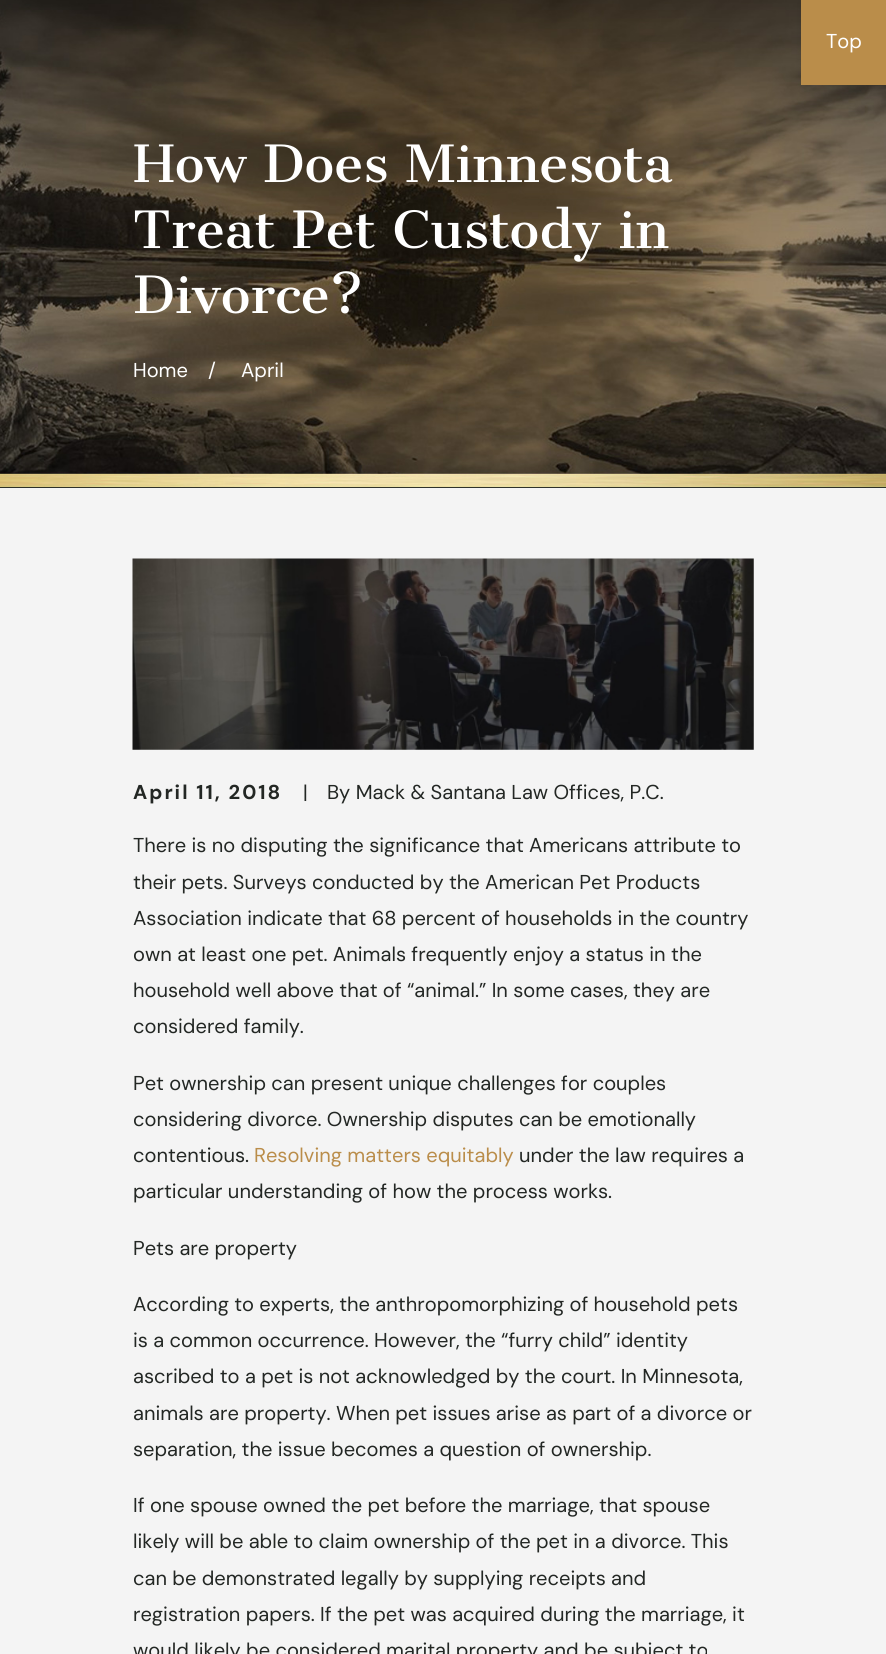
import math
import cairocffi as cairo

surface = cairo.ImageSurface(cairo.FORMAT_RGB24, 886, 1654)
cr = cairo.Context(surface)
options = cairo.FontOptions()
options.set_hint_metrics(cairo.HINT_METRICS_OFF)
options.set_hint_style(cairo.HINT_STYLE_NONE)
cr.set_font_options(options)
cr.set_miter_limit(4)


def use_color(code):
    cr.set_source_rgb(*(v / 255 for v in bytes.fromhex(code[-6:])))


def spaced_text(x, y, s, letter, word):
    cr.move_to(x, y)
    for ch in s:
        cr.show_text(ch)
        cr.rel_move_to(letter + word * (ch == ' '), 0)


def round_rect(x, y, w, h, r):
    cr.new_sub_path()
    for i, (u, v) in enumerate([(x + w - r, y + h - r), (x + r, y + h - r), (x + r, y + r), (x + w - r, y + r)]):
        cr.arc(u, v, r, i * math.pi / 2, (i + 1) * math.pi / 2)
    cr.close_path()


def shadow(x, y, w, h, r, blur, alpha):
    cr.push_group_with_content(cairo.CONTENT_ALPHA)
    cr.set_operator(cairo.OPERATOR_SOURCE)
    for i in range(15, -16, -2):
        e = blur * i / 6
        if min(w, h) + 2 * e > 0:
            cr.set_source_rgba(0, 0, 0, alpha * math.erfc((i - 1) / 8.5) / 2)
            round_rect(x - e, y - e, w + 2 * e, h + 2 * e, max(0, min(r + e + blur * .6, min(w, h) / 2 + e)))
            cr.fill()
    cr.mask(cr.pop_group())


def picture(path, x, y, w, h):
    cr.save()
    cr.set_source_surface(cairo.ImageSurface.create_from_png(path), x, y)
    cr.rectangle(x, y, w, h)
    cr.fill()
    cr.restore()


use_color("#f4f4f4")
cr.paint()
use_color("#232724")
cr.rectangle(0, 487, 886, 1)
cr.fill()
picture("img1.png", 0, 0, 886, 488)
use_color("#000000")
shadow(804, 3, 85, 85, 0, 5, 0.16)
use_color("#ba8d4a")
cr.rectangle(801, 0, 85, 85)
cr.fill()
cr.select_font_face("DM Sans")
cr.set_font_size(20.1)
use_color("#ffffff")
cr.move_to(826, 48)
cr.show_text("Top")
cr.select_font_face("Cantata One")
cr.set_font_size(50.25)
cr.move_to(133, 182)
cr.show_text("How Does Minnesota")
cr.move_to(133, 248)
cr.show_text("Treat Pet Custody in")
cr.move_to(133, 313)
cr.show_text("Divorce?")
cr.select_font_face("DM Sans")
cr.set_font_size(20.1)
cr.move_to(133, 377)
cr.show_text("Home")
cr.move_to(208, 377)
cr.show_text("/")
cr.move_to(241, 377)
cr.show_text("April")
picture("img2.png", 132, 558, 622, 192)
cr.select_font_face("DM Sans", cairo.FONT_SLANT_NORMAL, cairo.FONT_WEIGHT_BOLD)
use_color("#232724")
spaced_text(133, 799, "April 11, 2018", 2, 0)
cr.select_font_face("DM Sans")
cr.move_to(303, 799)
cr.show_text("|")
cr.move_to(327, 799)
cr.show_text("By Mack & Santana Law Offices, P.C.")
cr.move_to(133, 852)
cr.show_text("There is no disputing the significance that Americans attribute to")
cr.move_to(133, 889)
cr.show_text("their pets. Surveys conducted by the American Pet Products")
cr.move_to(133, 925)
cr.show_text("Association indicate that 68 percent of households in the country")
cr.move_to(133, 961)
cr.show_text("own at least one pet. Animals frequently enjoy a status in the")
cr.move_to(133, 997)
cr.show_text("household well above that of “animal.” In some cases, they are")
cr.move_to(133, 1033)
cr.show_text("considered family.")
cr.move_to(133, 1090)
cr.show_text("Pet ownership can present unique challenges for couples")
cr.move_to(133, 1126)
cr.show_text("considering divorce. Ownership disputes can be emotionally")
cr.move_to(133, 1162)
cr.show_text("contentious.")
use_color("#ba8d4a")
cr.move_to(254, 1162)
cr.show_text("Resolving matters equitably")
use_color("#232724")
cr.move_to(519, 1162)
cr.show_text("under the law requires a")
cr.move_to(133, 1198)
cr.show_text("particular understanding of how the process works.")
cr.move_to(133, 1255)
cr.show_text("Pets are property")
cr.move_to(133, 1311)
cr.show_text("According to experts, the anthropomorphizing of household pets")
cr.move_to(133, 1347)
cr.show_text("is a common occurrence. However, the “furry child” identity")
cr.move_to(133, 1383)
cr.show_text("ascribed to a pet is not acknowledged by the court. In Minnesota,")
cr.move_to(133, 1420)
cr.show_text("animals are property. When pet issues arise as part of a divorce or")
cr.move_to(133, 1456)
cr.show_text("separation, the issue becomes a question of ownership.")
cr.move_to(133, 1512)
cr.show_text("If one spouse owned the pet before the marriage, that spouse")
cr.move_to(133, 1548)
cr.show_text("likely will be able to claim ownership of the pet in a divorce. This")
cr.move_to(133, 1585)
cr.show_text("can be demonstrated legally by supplying receipts and")
cr.move_to(133, 1621)
cr.show_text("registration papers. If the pet was acquired during the marriage, it")
cr.move_to(133, 1657)
cr.show_text("would likely be considered marital property and be subject to")
surface.write_to_png("result.png")
